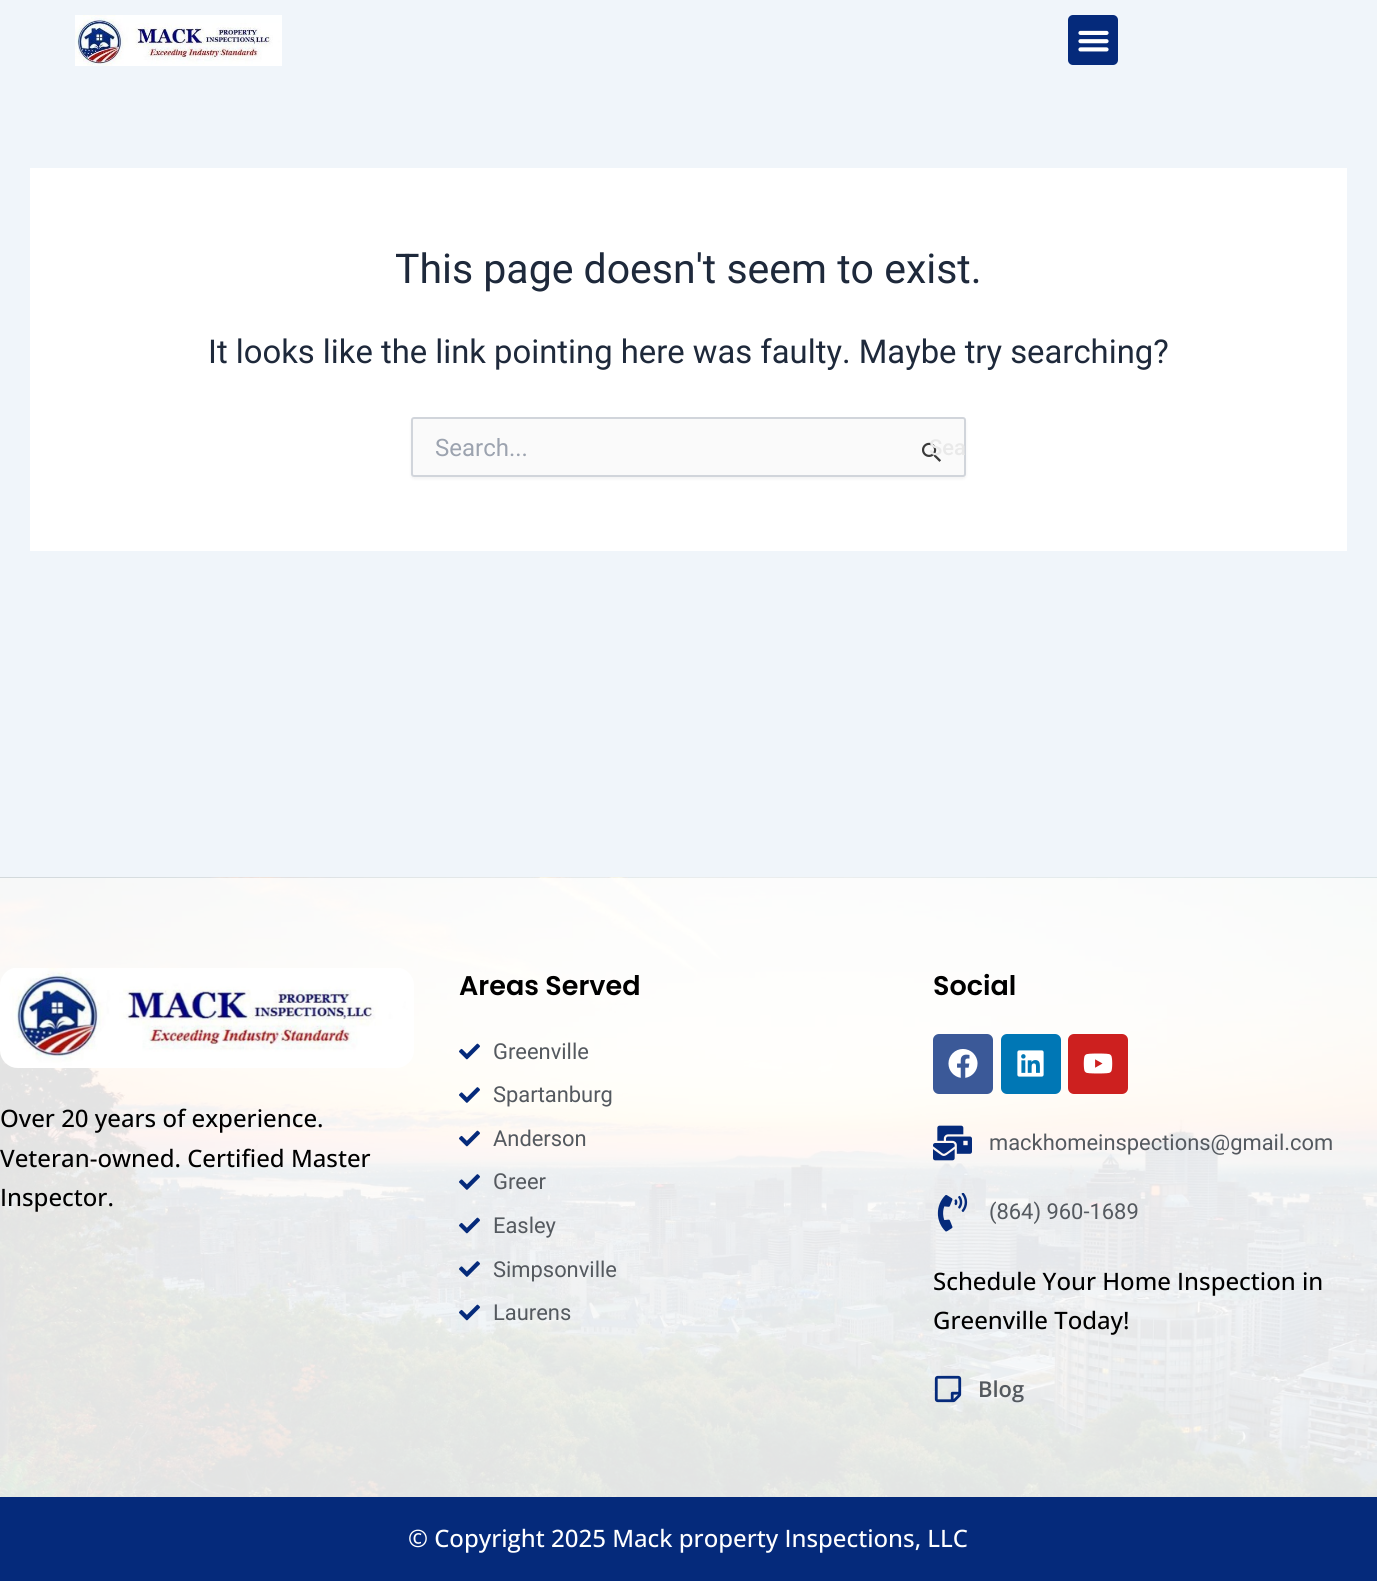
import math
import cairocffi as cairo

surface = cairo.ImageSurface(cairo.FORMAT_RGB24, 1377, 1581)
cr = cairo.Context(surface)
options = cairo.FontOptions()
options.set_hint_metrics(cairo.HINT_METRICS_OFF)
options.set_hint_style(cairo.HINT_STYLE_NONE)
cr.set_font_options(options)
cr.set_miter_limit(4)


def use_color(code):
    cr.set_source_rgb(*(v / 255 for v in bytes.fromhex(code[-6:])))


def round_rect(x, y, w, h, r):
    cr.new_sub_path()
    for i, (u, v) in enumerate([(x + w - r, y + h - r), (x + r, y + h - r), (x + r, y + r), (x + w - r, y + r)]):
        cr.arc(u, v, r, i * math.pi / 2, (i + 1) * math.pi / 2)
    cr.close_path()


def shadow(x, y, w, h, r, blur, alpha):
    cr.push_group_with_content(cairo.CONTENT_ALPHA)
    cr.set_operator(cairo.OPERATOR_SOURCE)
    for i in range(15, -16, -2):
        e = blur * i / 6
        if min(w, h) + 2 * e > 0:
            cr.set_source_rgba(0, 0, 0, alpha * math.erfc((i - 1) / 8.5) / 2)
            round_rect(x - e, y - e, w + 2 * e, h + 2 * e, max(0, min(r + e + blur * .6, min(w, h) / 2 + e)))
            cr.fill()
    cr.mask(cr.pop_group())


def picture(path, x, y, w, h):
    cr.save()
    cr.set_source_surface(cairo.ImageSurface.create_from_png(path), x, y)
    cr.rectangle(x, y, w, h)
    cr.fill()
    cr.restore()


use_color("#f0f5fa")
cr.paint()
picture("img1.png", 75, 15, 207, 51)
use_color("#052a7b")
round_rect(1068, 15, 50, 50, 5)
cr.fill()
picture("img2.png", 1078, 30, 31, 22)
use_color("#ffffff")
cr.rectangle(30, 168, 1317, 383)
cr.fill()
cr.select_font_face("Roboto")
cr.set_font_size(41)
use_color("#1e293b")
cr.move_to(395, 283)
cr.show_text("This page doesn't seem to exist.")
cr.set_font_size(32.8)
cr.move_to(208, 363)
cr.show_text("It looks like the link pointing here was faulty. Maybe try searching?")
use_color("#000000")
shadow(411, 419, 555, 60, 3, 1.5, 0.05)
use_color("#fafafa")
round_rect(412, 418, 553, 58, 2)
cr.fill_preserve()
use_color("#d1d5db")
cr.stroke()
cr.set_font_size(24)
use_color("#9ca3af")
cr.move_to(435, 456)
cr.show_text("Search...")
picture("img3.png", 922, 442, 19, 20)
cr.select_font_face("Roboto Medium")
cr.set_font_size(21.9)
use_color("#e9e9e9")
cr.move_to(929, 455)
cr.show_text("Sea")
picture("img4.png", 0, 877, 1377, 620)
picture("img5.png", 0, 968, 414, 100)
cr.select_font_face("Open Sans Medium")
cr.set_font_size(24)
use_color("#000000")
cr.move_to(0, 1127)
cr.show_text("Over 20 years of experience.")
cr.move_to(0, 1167)
cr.show_text("Veteran-owned. Certified Master")
cr.move_to(0, 1206)
cr.show_text("Inspector.")
cr.select_font_face("Poppins SemiBold")
cr.set_font_size(27)
cr.move_to(459, 995)
cr.show_text("Areas Served")
picture("img6.png", 459, 1043, 21, 17)
cr.select_font_face("Roboto")
cr.set_font_size(21.9)
use_color("#54595f")
cr.move_to(493, 1059)
cr.show_text("Greenville")
picture("img7.png", 459, 1087, 21, 16)
cr.move_to(493, 1102)
cr.show_text("Spartanburg")
picture("img8.png", 459, 1130, 21, 17)
cr.move_to(493, 1146)
cr.show_text("Anderson")
picture("img9.png", 459, 1174, 21, 16)
cr.move_to(493, 1189)
cr.show_text("Greer")
picture("img10.png", 459, 1217, 21, 17)
cr.move_to(493, 1233)
cr.show_text("Easley")
picture("img11.png", 459, 1261, 21, 16)
cr.move_to(493, 1277)
cr.show_text("Simpsonville")
picture("img12.png", 459, 1304, 21, 17)
cr.move_to(493, 1320)
cr.show_text("Laurens")
cr.select_font_face("Poppins SemiBold")
cr.set_font_size(27)
use_color("#000000")
cr.move_to(933, 995)
cr.show_text("Social")
use_color("#3b5998")
round_rect(933, 1034, 60, 60, 6)
cr.fill()
picture("img13.png", 948, 1049, 30, 29)
use_color("#0077b5")
round_rect(1001, 1034, 60, 60, 6)
cr.fill()
picture("img14.png", 1017, 1050, 27, 27)
use_color("#cd201f")
round_rect(1068, 1034, 60, 60, 6)
cr.fill()
picture("img15.png", 1083, 1053, 30, 21)
picture("img16.png", 933, 1125, 39, 36)
cr.select_font_face("Roboto")
cr.set_font_size(21.9)
use_color("#54595f")
cr.move_to(989, 1150)
cr.show_text("mackhomeinspections@gmail.com")
picture("img17.png", 937, 1193, 31, 39)
cr.move_to(989, 1219)
cr.show_text("(864) 960-1689")
cr.select_font_face("Open Sans Medium")
cr.set_font_size(24)
use_color("#000000")
cr.move_to(933, 1290)
cr.show_text("Schedule Your Home Inspection in")
cr.move_to(933, 1329)
cr.show_text("Greenville Today!")
picture("img18.png", 934, 1375, 28, 28)
cr.select_font_face("Open Sans SemiBold")
cr.set_font_size(21.9)
use_color("#54595f")
cr.move_to(978, 1397)
cr.show_text("Blog")
use_color("#052a7b")
cr.rectangle(0, 1497, 1377, 84)
cr.fill()
cr.select_font_face("Open Sans Medium")
cr.set_font_size(24)
use_color("#ffffff")
cr.move_to(408, 1547)
cr.show_text("© Copyright 2025 Mack property Inspections, LLC")
surface.write_to_png("result.png")
